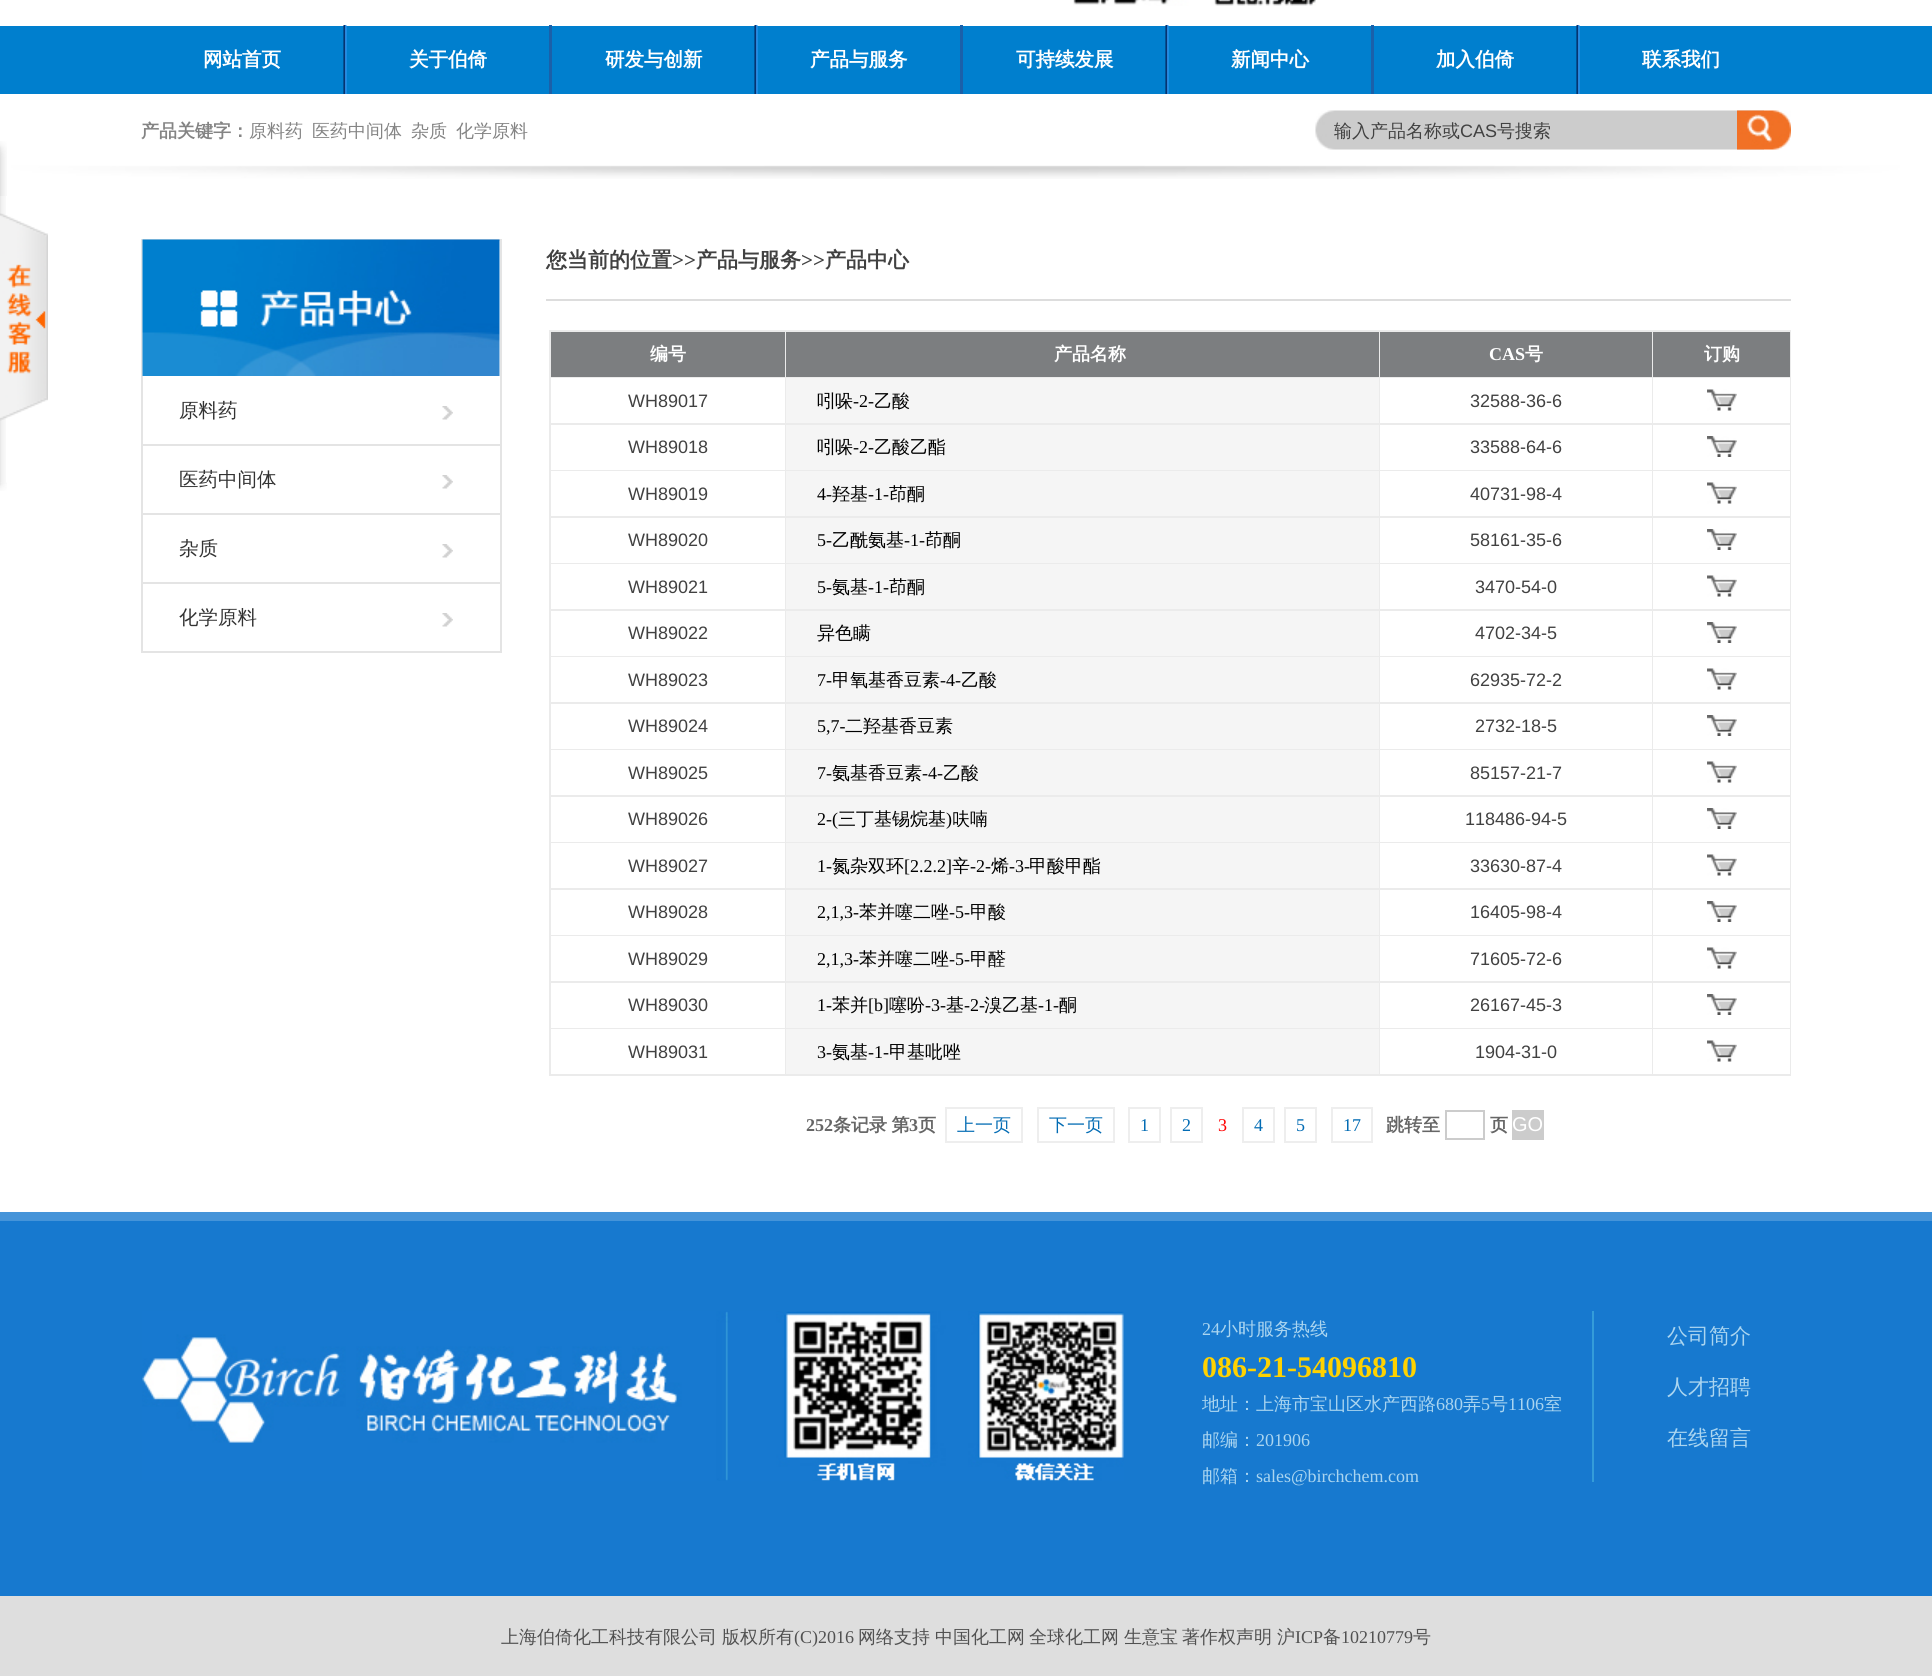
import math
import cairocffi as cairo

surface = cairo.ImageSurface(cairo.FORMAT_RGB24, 1932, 1676)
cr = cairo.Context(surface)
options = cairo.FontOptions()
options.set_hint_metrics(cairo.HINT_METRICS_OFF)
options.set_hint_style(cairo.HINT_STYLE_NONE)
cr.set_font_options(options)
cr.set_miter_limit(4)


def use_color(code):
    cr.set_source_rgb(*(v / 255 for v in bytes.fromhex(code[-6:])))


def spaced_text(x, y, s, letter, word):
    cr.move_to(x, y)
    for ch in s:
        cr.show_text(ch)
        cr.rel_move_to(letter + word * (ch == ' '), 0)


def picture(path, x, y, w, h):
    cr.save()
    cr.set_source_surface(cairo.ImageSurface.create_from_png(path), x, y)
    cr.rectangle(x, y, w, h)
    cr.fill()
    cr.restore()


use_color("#ffffff")
cr.paint()
picture("img1.png", 1073, 0, 243, 6)
use_color("#007fce")
cr.rectangle(0, 26, 1932, 68)
cr.fill()
cr.select_font_face("WenQuanYi Zen Hei", cairo.FONT_SLANT_NORMAL, cairo.FONT_WEIGHT_BOLD)
cr.set_font_size(19.5)
use_color("#ffffff")
cr.move_to(203, 66)
cr.show_text("网站首页")
picture("img2.png", 343, 25, 4, 69)
cr.move_to(409, 66)
cr.show_text("关于伯倚")
use_color("#1b60a9")
cr.rectangle(549, 25, 3, 69)
cr.fill()
use_color("#ffffff")
cr.move_to(605, 66)
cr.show_text("研发与创新")
picture("img2.png", 754, 25, 4, 69)
cr.move_to(810, 66)
cr.show_text("产品与服务")
use_color("#1b60a9")
cr.rectangle(960, 25, 3, 69)
cr.fill()
use_color("#ffffff")
cr.move_to(1016, 66)
cr.show_text("可持续发展")
picture("img2.png", 1165, 25, 4, 69)
cr.move_to(1231, 66)
cr.show_text("新闻中心")
use_color("#1b60a9")
cr.rectangle(1371, 25, 3, 69)
cr.fill()
use_color("#ffffff")
cr.move_to(1436, 66)
cr.show_text("加入伯倚")
picture("img2.png", 1576, 25, 4, 69)
cr.move_to(1642, 66)
cr.show_text("联系我们")
picture("img3.png", 0, 94, 1932, 85)
cr.set_font_size(18)
use_color("#848484")
cr.move_to(141, 137)
cr.show_text("产品关键字：")
cr.select_font_face("WenQuanYi Zen Hei Medium")
cr.move_to(249, 137)
cr.show_text("原料药")
cr.move_to(312, 137)
cr.show_text("医药中间体")
cr.move_to(411, 137)
cr.show_text("杂质")
cr.move_to(456, 137)
cr.show_text("化学原料")
picture("img4.png", 1315, 110, 449, 40)
use_color("#414141")
cr.move_to(1334, 137)
cr.show_text("输入产品名称或")
cr.select_font_face("Liberation Sans")
cr.move_to(1460, 137)
cr.show_text("CAS")
cr.select_font_face("WenQuanYi Zen Hei Medium")
cr.move_to(1497, 137)
cr.show_text("号搜索")
picture("img5.png", 1737, 110, 54, 40)
picture("img6.png", 0, 141, 7, 55)
picture("img7.png", 0, 196, 6, 287)
picture("img8.png", 0, 482, 7, 9)
picture("img9.png", 0, 213, 48, 208)
use_color("#e4e4e4")
cr.rectangle(141, 239, 360, 2)
cr.fill()
cr.rectangle(500, 239, 2, 414)
cr.fill()
cr.rectangle(141, 239, 2, 414)
cr.fill()
picture("img10.png", 142, 239, 358, 137)
picture("img11.png", 442, 406, 11, 14)
cr.rectangle(143, 444, 357, 2)
cr.fill()
cr.set_font_size(19.5)
use_color("#333333")
cr.move_to(179, 417)
cr.show_text("原料药")
picture("img11.png", 442, 475, 11, 14)
use_color("#e4e4e4")
cr.rectangle(143, 513, 357, 2)
cr.fill()
use_color("#333333")
cr.move_to(179, 486)
cr.show_text("医药中间体")
picture("img11.png", 442, 544, 11, 14)
use_color("#e4e4e4")
cr.rectangle(143, 582, 357, 2)
cr.fill()
use_color("#333333")
cr.move_to(179, 555)
cr.show_text("杂质")
picture("img11.png", 442, 613, 11, 14)
use_color("#e4e4e4")
cr.rectangle(143, 651, 357, 2)
cr.fill()
use_color("#333333")
cr.move_to(179, 624)
cr.show_text("化学原料")
use_color("#dddddd")
cr.rectangle(546, 299, 1245, 2)
cr.fill()
cr.select_font_face("WenQuanYi Zen Hei", cairo.FONT_SLANT_NORMAL, cairo.FONT_WEIGHT_BOLD)
cr.set_font_size(21)
use_color("#414141")
cr.move_to(546, 267)
cr.show_text("您当前的位置")
cr.select_font_face("Liberation Serif", cairo.FONT_SLANT_NORMAL, cairo.FONT_WEIGHT_BOLD)
cr.move_to(672, 267)
cr.show_text(">>")
cr.select_font_face("WenQuanYi Zen Hei", cairo.FONT_SLANT_NORMAL, cairo.FONT_WEIGHT_BOLD)
cr.move_to(696, 267)
cr.show_text("产品与服务")
cr.select_font_face("Liberation Serif", cairo.FONT_SLANT_NORMAL, cairo.FONT_WEIGHT_BOLD)
cr.move_to(801, 267)
cr.show_text(">>")
cr.select_font_face("WenQuanYi Zen Hei", cairo.FONT_SLANT_NORMAL, cairo.FONT_WEIGHT_BOLD)
cr.move_to(825, 267)
cr.show_text("产品中心")
use_color("#ebebeb")
cr.rectangle(549, 330, 1242, 746)
cr.fill()
use_color("#7c7e80")
cr.rectangle(551, 332, 234, 45)
cr.fill()
cr.set_font_size(18)
use_color("#ffffff")
cr.move_to(650, 360)
cr.show_text("编号")
use_color("#7c7e80")
cr.rectangle(786, 332, 593, 45)
cr.fill()
use_color("#ffffff")
cr.move_to(1054, 360)
cr.show_text("产品名称")
use_color("#7c7e80")
cr.rectangle(1380, 332, 272, 45)
cr.fill()
cr.select_font_face("Liberation Serif", cairo.FONT_SLANT_NORMAL, cairo.FONT_WEIGHT_BOLD)
use_color("#ffffff")
cr.move_to(1489, 360)
cr.show_text("CAS")
cr.select_font_face("WenQuanYi Zen Hei", cairo.FONT_SLANT_NORMAL, cairo.FONT_WEIGHT_BOLD)
cr.move_to(1525, 360)
cr.show_text("号")
use_color("#7c7e80")
cr.rectangle(1653, 332, 137, 45)
cr.fill()
use_color("#ffffff")
cr.move_to(1704, 360)
cr.show_text("订购")
cr.rectangle(551, 378, 234, 45)
cr.fill()
cr.select_font_face("Liberation Sans")
use_color("#414141")
cr.move_to(628, 407)
cr.show_text("WH89017")
use_color("#f5f5f5")
cr.rectangle(786, 378, 593, 45)
cr.fill()
cr.select_font_face("WenQuanYi Zen Hei Medium")
use_color("#000000")
cr.move_to(817, 407)
cr.show_text("吲哚")
cr.select_font_face("Liberation Serif")
cr.move_to(853, 407)
cr.show_text("-2-")
cr.select_font_face("WenQuanYi Zen Hei Medium")
cr.move_to(874, 407)
cr.show_text("乙酸")
use_color("#ffffff")
cr.rectangle(1380, 378, 272, 45)
cr.fill()
cr.select_font_face("Liberation Sans")
use_color("#414141")
cr.move_to(1470, 407)
cr.show_text("32588-36-6")
use_color("#ffffff")
cr.rectangle(1653, 378, 137, 45)
cr.fill()
picture("img12.png", 1707, 389, 30, 22)
cr.rectangle(551, 425, 234, 45)
cr.fill()
use_color("#414141")
cr.move_to(628, 453)
cr.show_text("WH89018")
use_color("#f5f5f5")
cr.rectangle(786, 425, 593, 45)
cr.fill()
cr.select_font_face("WenQuanYi Zen Hei Medium")
use_color("#000000")
cr.move_to(817, 453)
cr.show_text("吲哚")
cr.select_font_face("Liberation Serif")
cr.move_to(853, 453)
cr.show_text("-2-")
cr.select_font_face("WenQuanYi Zen Hei Medium")
cr.move_to(874, 453)
cr.show_text("乙酸乙酯")
use_color("#ffffff")
cr.rectangle(1380, 425, 272, 45)
cr.fill()
cr.select_font_face("Liberation Sans")
use_color("#414141")
cr.move_to(1470, 453)
cr.show_text("33588-64-6")
use_color("#ffffff")
cr.rectangle(1653, 425, 137, 45)
cr.fill()
picture("img13.png", 1707, 436, 30, 21)
cr.rectangle(551, 471, 234, 45)
cr.fill()
use_color("#414141")
cr.move_to(628, 500)
cr.show_text("WH89019")
use_color("#f5f5f5")
cr.rectangle(786, 471, 593, 45)
cr.fill()
cr.select_font_face("Liberation Serif")
use_color("#000000")
cr.move_to(817, 500)
cr.show_text("4-")
cr.select_font_face("WenQuanYi Zen Hei Medium")
cr.move_to(832, 500)
cr.show_text("羟基")
cr.select_font_face("Liberation Serif")
cr.move_to(868, 500)
cr.show_text("-1-")
cr.select_font_face("WenQuanYi Zen Hei Medium")
cr.move_to(889, 500)
cr.show_text("茚酮")
use_color("#ffffff")
cr.rectangle(1380, 471, 272, 45)
cr.fill()
cr.select_font_face("Liberation Sans")
use_color("#414141")
cr.move_to(1470, 500)
cr.show_text("40731-98-4")
use_color("#ffffff")
cr.rectangle(1653, 471, 137, 45)
cr.fill()
picture("img12.png", 1707, 482, 30, 22)
cr.rectangle(551, 518, 234, 45)
cr.fill()
use_color("#414141")
cr.move_to(628, 546)
cr.show_text("WH89020")
use_color("#f5f5f5")
cr.rectangle(786, 518, 593, 45)
cr.fill()
cr.select_font_face("Liberation Serif")
use_color("#000000")
cr.move_to(817, 546)
cr.show_text("5-")
cr.select_font_face("WenQuanYi Zen Hei Medium")
cr.move_to(832, 546)
cr.show_text("乙酰氨基")
cr.select_font_face("Liberation Serif")
cr.move_to(904, 546)
cr.show_text("-1-")
cr.select_font_face("WenQuanYi Zen Hei Medium")
cr.move_to(925, 546)
cr.show_text("茚酮")
use_color("#ffffff")
cr.rectangle(1380, 518, 272, 45)
cr.fill()
cr.select_font_face("Liberation Sans")
use_color("#414141")
cr.move_to(1470, 546)
cr.show_text("58161-35-6")
use_color("#ffffff")
cr.rectangle(1653, 518, 137, 45)
cr.fill()
picture("img13.png", 1707, 529, 30, 21)
cr.rectangle(551, 564, 234, 45)
cr.fill()
use_color("#414141")
cr.move_to(628, 593)
cr.show_text("WH89021")
use_color("#f5f5f5")
cr.rectangle(786, 564, 593, 45)
cr.fill()
cr.select_font_face("Liberation Serif")
use_color("#000000")
cr.move_to(817, 593)
cr.show_text("5-")
cr.select_font_face("WenQuanYi Zen Hei Medium")
cr.move_to(832, 593)
cr.show_text("氨基")
cr.select_font_face("Liberation Serif")
cr.move_to(868, 593)
cr.show_text("-1-")
cr.select_font_face("WenQuanYi Zen Hei Medium")
cr.move_to(889, 593)
cr.show_text("茚酮")
use_color("#ffffff")
cr.rectangle(1380, 564, 272, 45)
cr.fill()
cr.select_font_face("Liberation Sans")
use_color("#414141")
cr.move_to(1475, 593)
cr.show_text("3470-54-0")
use_color("#ffffff")
cr.rectangle(1653, 564, 137, 45)
cr.fill()
picture("img12.png", 1707, 575, 30, 22)
cr.rectangle(551, 611, 234, 45)
cr.fill()
use_color("#414141")
cr.move_to(628, 639)
cr.show_text("WH89022")
use_color("#f5f5f5")
cr.rectangle(786, 611, 593, 45)
cr.fill()
cr.select_font_face("WenQuanYi Zen Hei Medium")
use_color("#000000")
cr.move_to(817, 639)
cr.show_text("异色瞒")
use_color("#ffffff")
cr.rectangle(1380, 611, 272, 45)
cr.fill()
cr.select_font_face("Liberation Sans")
use_color("#414141")
cr.move_to(1475, 639)
cr.show_text("4702-34-5")
use_color("#ffffff")
cr.rectangle(1653, 611, 137, 45)
cr.fill()
picture("img13.png", 1707, 622, 30, 21)
cr.rectangle(551, 657, 234, 45)
cr.fill()
use_color("#414141")
cr.move_to(628, 686)
cr.show_text("WH89023")
use_color("#f5f5f5")
cr.rectangle(786, 657, 593, 45)
cr.fill()
cr.select_font_face("Liberation Serif")
use_color("#000000")
cr.move_to(817, 686)
cr.show_text("7-")
cr.select_font_face("WenQuanYi Zen Hei Medium")
cr.move_to(832, 686)
cr.show_text("甲氧基香豆素")
cr.select_font_face("Liberation Serif")
cr.move_to(940, 686)
cr.show_text("-4-")
cr.select_font_face("WenQuanYi Zen Hei Medium")
cr.move_to(961, 686)
cr.show_text("乙酸")
use_color("#ffffff")
cr.rectangle(1380, 657, 272, 45)
cr.fill()
cr.select_font_face("Liberation Sans")
use_color("#414141")
cr.move_to(1470, 686)
cr.show_text("62935-72-2")
use_color("#ffffff")
cr.rectangle(1653, 657, 137, 45)
cr.fill()
picture("img12.png", 1707, 668, 30, 22)
cr.rectangle(551, 704, 234, 45)
cr.fill()
use_color("#414141")
cr.move_to(628, 732)
cr.show_text("WH89024")
use_color("#f5f5f5")
cr.rectangle(786, 704, 593, 45)
cr.fill()
cr.select_font_face("Liberation Serif")
use_color("#000000")
cr.move_to(817, 732)
cr.show_text("5,7-")
cr.select_font_face("WenQuanYi Zen Hei Medium")
cr.move_to(845, 732)
cr.show_text("二羟基香豆素")
use_color("#ffffff")
cr.rectangle(1380, 704, 272, 45)
cr.fill()
cr.select_font_face("Liberation Sans")
use_color("#414141")
cr.move_to(1475, 732)
cr.show_text("2732-18-5")
use_color("#ffffff")
cr.rectangle(1653, 704, 137, 45)
cr.fill()
picture("img13.png", 1707, 715, 30, 21)
cr.rectangle(551, 750, 234, 45)
cr.fill()
use_color("#414141")
cr.move_to(628, 779)
cr.show_text("WH89025")
use_color("#f5f5f5")
cr.rectangle(786, 750, 593, 45)
cr.fill()
cr.select_font_face("Liberation Serif")
use_color("#000000")
cr.move_to(817, 779)
cr.show_text("7-")
cr.select_font_face("WenQuanYi Zen Hei Medium")
cr.move_to(832, 779)
cr.show_text("氨基香豆素")
cr.select_font_face("Liberation Serif")
cr.move_to(922, 779)
cr.show_text("-4-")
cr.select_font_face("WenQuanYi Zen Hei Medium")
cr.move_to(943, 779)
cr.show_text("乙酸")
use_color("#ffffff")
cr.rectangle(1380, 750, 272, 45)
cr.fill()
cr.select_font_face("Liberation Sans")
use_color("#414141")
cr.move_to(1470, 779)
cr.show_text("85157-21-7")
use_color("#ffffff")
cr.rectangle(1653, 750, 137, 45)
cr.fill()
picture("img12.png", 1707, 761, 30, 22)
cr.rectangle(551, 797, 234, 45)
cr.fill()
use_color("#414141")
cr.move_to(628, 825)
cr.show_text("WH89026")
use_color("#f5f5f5")
cr.rectangle(786, 797, 593, 45)
cr.fill()
cr.select_font_face("Liberation Serif")
use_color("#000000")
cr.move_to(817, 825)
cr.show_text("2-(")
cr.select_font_face("WenQuanYi Zen Hei Medium")
cr.move_to(838, 825)
cr.show_text("三丁基锡烷基")
cr.select_font_face("Liberation Serif")
cr.move_to(946, 825)
cr.show_text(")")
cr.select_font_face("WenQuanYi Zen Hei Medium")
cr.move_to(952, 825)
cr.show_text("呋喃")
use_color("#ffffff")
cr.rectangle(1380, 797, 272, 45)
cr.fill()
cr.select_font_face("Liberation Sans")
use_color("#414141")
cr.move_to(1465, 825)
cr.show_text("118486-94-5")
use_color("#ffffff")
cr.rectangle(1653, 797, 137, 45)
cr.fill()
picture("img13.png", 1707, 808, 30, 21)
cr.rectangle(551, 843, 234, 45)
cr.fill()
use_color("#414141")
cr.move_to(628, 872)
cr.show_text("WH89027")
use_color("#f5f5f5")
cr.rectangle(786, 843, 593, 45)
cr.fill()
cr.select_font_face("Liberation Serif")
use_color("#000000")
cr.move_to(817, 872)
cr.show_text("1-")
cr.select_font_face("WenQuanYi Zen Hei Medium")
cr.move_to(832, 872)
cr.show_text("氮杂双环")
cr.select_font_face("Liberation Serif")
cr.move_to(904, 872)
cr.show_text("[2.2.2]")
cr.select_font_face("WenQuanYi Zen Hei Medium")
cr.move_to(952, 872)
cr.show_text("辛")
cr.select_font_face("Liberation Serif")
cr.move_to(970, 872)
cr.show_text("-2-")
cr.select_font_face("WenQuanYi Zen Hei Medium")
cr.move_to(991, 872)
cr.show_text("烯")
cr.select_font_face("Liberation Serif")
cr.move_to(1009, 872)
cr.show_text("-3-")
cr.select_font_face("WenQuanYi Zen Hei Medium")
cr.move_to(1029, 872)
cr.show_text("甲酸甲酯")
use_color("#ffffff")
cr.rectangle(1380, 843, 272, 45)
cr.fill()
cr.select_font_face("Liberation Sans")
use_color("#414141")
cr.move_to(1470, 872)
cr.show_text("33630-87-4")
use_color("#ffffff")
cr.rectangle(1653, 843, 137, 45)
cr.fill()
picture("img12.png", 1707, 854, 30, 22)
cr.rectangle(551, 890, 234, 45)
cr.fill()
use_color("#414141")
cr.move_to(628, 918)
cr.show_text("WH89028")
use_color("#f5f5f5")
cr.rectangle(786, 890, 593, 45)
cr.fill()
cr.select_font_face("Liberation Serif")
use_color("#000000")
cr.move_to(817, 918)
cr.show_text("2,1,3-")
cr.select_font_face("WenQuanYi Zen Hei Medium")
cr.move_to(859, 918)
cr.show_text("苯并噻二唑")
cr.select_font_face("Liberation Serif")
cr.move_to(949, 918)
cr.show_text("-5-")
cr.select_font_face("WenQuanYi Zen Hei Medium")
cr.move_to(970, 918)
cr.show_text("甲酸")
use_color("#ffffff")
cr.rectangle(1380, 890, 272, 45)
cr.fill()
cr.select_font_face("Liberation Sans")
use_color("#414141")
cr.move_to(1470, 918)
cr.show_text("16405-98-4")
use_color("#ffffff")
cr.rectangle(1653, 890, 137, 45)
cr.fill()
picture("img13.png", 1707, 901, 30, 21)
cr.rectangle(551, 936, 234, 45)
cr.fill()
use_color("#414141")
cr.move_to(628, 965)
cr.show_text("WH89029")
use_color("#f5f5f5")
cr.rectangle(786, 936, 593, 45)
cr.fill()
cr.select_font_face("Liberation Serif")
use_color("#000000")
cr.move_to(817, 965)
cr.show_text("2,1,3-")
cr.select_font_face("WenQuanYi Zen Hei Medium")
cr.move_to(859, 965)
cr.show_text("苯并噻二唑")
cr.select_font_face("Liberation Serif")
cr.move_to(949, 965)
cr.show_text("-5-")
cr.select_font_face("WenQuanYi Zen Hei Medium")
cr.move_to(970, 965)
cr.show_text("甲醛")
use_color("#ffffff")
cr.rectangle(1380, 936, 272, 45)
cr.fill()
cr.select_font_face("Liberation Sans")
use_color("#414141")
cr.move_to(1470, 965)
cr.show_text("71605-72-6")
use_color("#ffffff")
cr.rectangle(1653, 936, 137, 45)
cr.fill()
picture("img12.png", 1707, 947, 30, 22)
cr.rectangle(551, 983, 234, 45)
cr.fill()
use_color("#414141")
cr.move_to(628, 1011)
cr.show_text("WH89030")
use_color("#f5f5f5")
cr.rectangle(786, 983, 593, 45)
cr.fill()
cr.select_font_face("Liberation Serif")
use_color("#000000")
cr.move_to(817, 1011)
cr.show_text("1-")
cr.select_font_face("WenQuanYi Zen Hei Medium")
cr.move_to(832, 1011)
cr.show_text("苯并")
cr.select_font_face("Liberation Serif")
cr.move_to(868, 1011)
cr.show_text("[b]")
cr.select_font_face("WenQuanYi Zen Hei Medium")
cr.move_to(889, 1011)
cr.show_text("噻吩")
cr.select_font_face("Liberation Serif")
cr.move_to(925, 1011)
cr.show_text("-3-")
cr.select_font_face("WenQuanYi Zen Hei Medium")
cr.move_to(946, 1011)
cr.show_text("基")
cr.select_font_face("Liberation Serif")
cr.move_to(964, 1011)
cr.show_text("-2-")
cr.select_font_face("WenQuanYi Zen Hei Medium")
cr.move_to(984, 1011)
cr.show_text("溴乙基")
cr.select_font_face("Liberation Serif")
cr.move_to(1038, 1011)
cr.show_text("-1-")
cr.select_font_face("WenQuanYi Zen Hei Medium")
cr.move_to(1059, 1011)
cr.show_text("酮")
use_color("#ffffff")
cr.rectangle(1380, 983, 272, 45)
cr.fill()
cr.select_font_face("Liberation Sans")
use_color("#414141")
cr.move_to(1470, 1011)
cr.show_text("26167-45-3")
use_color("#ffffff")
cr.rectangle(1653, 983, 137, 45)
cr.fill()
picture("img13.png", 1707, 994, 30, 21)
cr.rectangle(551, 1029, 234, 45)
cr.fill()
use_color("#414141")
cr.move_to(628, 1058)
cr.show_text("WH89031")
use_color("#f5f5f5")
cr.rectangle(786, 1029, 593, 45)
cr.fill()
cr.select_font_face("Liberation Serif")
use_color("#000000")
cr.move_to(817, 1058)
cr.show_text("3-")
cr.select_font_face("WenQuanYi Zen Hei Medium")
cr.move_to(832, 1058)
cr.show_text("氨基")
cr.select_font_face("Liberation Serif")
cr.move_to(868, 1058)
cr.show_text("-1-")
cr.select_font_face("WenQuanYi Zen Hei Medium")
cr.move_to(889, 1058)
cr.show_text("甲基吡唑")
use_color("#ffffff")
cr.rectangle(1380, 1029, 272, 45)
cr.fill()
cr.select_font_face("Liberation Sans")
use_color("#414141")
cr.move_to(1475, 1058)
cr.show_text("1904-31-0")
use_color("#ffffff")
cr.rectangle(1653, 1029, 137, 45)
cr.fill()
picture("img12.png", 1707, 1040, 30, 22)
cr.select_font_face("Liberation Serif", cairo.FONT_SLANT_NORMAL, cairo.FONT_WEIGHT_BOLD)
use_color("#666666")
cr.move_to(806, 1131)
cr.show_text("252")
cr.select_font_face("WenQuanYi Zen Hei", cairo.FONT_SLANT_NORMAL, cairo.FONT_WEIGHT_BOLD)
spaced_text(833, 1131, "条记录 第", 0, -1)
cr.select_font_face("Liberation Serif", cairo.FONT_SLANT_NORMAL, cairo.FONT_WEIGHT_BOLD)
cr.move_to(909, 1131)
cr.show_text("3")
cr.select_font_face("WenQuanYi Zen Hei", cairo.FONT_SLANT_NORMAL, cairo.FONT_WEIGHT_BOLD)
cr.move_to(918, 1131)
cr.show_text("页")
cr.rectangle(946, 1108, 76, 34)
use_color("#eeeeee")
cr.stroke()
cr.select_font_face("WenQuanYi Zen Hei Medium")
use_color("#036cb4")
cr.move_to(957, 1131)
cr.show_text("上一页")
cr.rectangle(1038, 1108, 76, 34)
use_color("#eeeeee")
cr.stroke()
use_color("#036cb4")
cr.move_to(1049, 1131)
cr.show_text("下一页")
cr.rectangle(1129, 1108, 31, 34)
use_color("#eeeeee")
cr.stroke()
cr.select_font_face("Liberation Serif")
use_color("#036cb4")
cr.move_to(1140, 1131)
cr.show_text("1")
cr.rectangle(1171, 1108, 31, 34)
use_color("#eeeeee")
cr.stroke()
use_color("#036cb4")
cr.move_to(1182, 1131)
cr.show_text("2")
use_color("#ff0000")
cr.move_to(1218, 1131)
cr.show_text("3")
cr.rectangle(1243, 1108, 31, 34)
use_color("#eeeeee")
cr.stroke()
use_color("#036cb4")
cr.move_to(1254, 1131)
cr.show_text("4")
cr.rectangle(1285, 1108, 31, 34)
use_color("#eeeeee")
cr.stroke()
use_color("#036cb4")
cr.move_to(1296, 1131)
cr.show_text("5")
cr.rectangle(1332, 1108, 40, 34)
use_color("#eeeeee")
cr.stroke()
use_color("#036cb4")
cr.move_to(1343, 1131)
cr.show_text("17")
cr.select_font_face("WenQuanYi Zen Hei", cairo.FONT_SLANT_NORMAL, cairo.FONT_WEIGHT_BOLD)
use_color("#666666")
cr.move_to(1386, 1131)
cr.show_text("跳转至")
cr.rectangle(1446, 1111, 38, 28)
use_color("#cccccc")
cr.stroke()
use_color("#666666")
cr.move_to(1490, 1131)
cr.show_text("页")
use_color("#cccccc")
cr.rectangle(1512, 1110, 32, 30)
cr.fill()
cr.select_font_face("Liberation Sans")
cr.set_font_size(20)
use_color("#ffffff")
cr.move_to(1512, 1131)
cr.show_text("GO")
use_color("#1779cf")
cr.rectangle(0, 1221, 1932, 375)
cr.fill()
use_color("#4594d9")
cr.rectangle(0, 1212, 1932, 9)
cr.fill()
picture("img14.png", 142, 1311, 982, 170)
cr.select_font_face("Liberation Serif")
cr.set_font_size(18)
use_color("#aad5f0")
cr.move_to(1202, 1335)
cr.show_text("24")
cr.select_font_face("WenQuanYi Zen Hei Medium")
cr.move_to(1220, 1335)
cr.show_text("小时服务热线")
cr.select_font_face("Liberation Serif", cairo.FONT_SLANT_NORMAL, cairo.FONT_WEIGHT_BOLD)
cr.set_font_size(30)
use_color("#ffd200")
cr.move_to(1202, 1377)
cr.show_text("086-21-54096810")
cr.select_font_face("WenQuanYi Zen Hei Medium")
cr.set_font_size(18)
use_color("#aad5f0")
cr.move_to(1202, 1410)
cr.show_text("地址：上海市宝山区水产西路")
cr.select_font_face("Liberation Serif")
cr.move_to(1436, 1410)
cr.show_text("680")
cr.select_font_face("WenQuanYi Zen Hei Medium")
cr.move_to(1463, 1410)
cr.show_text("弄")
cr.select_font_face("Liberation Serif")
cr.move_to(1481, 1410)
cr.show_text("5")
cr.select_font_face("WenQuanYi Zen Hei Medium")
cr.move_to(1490, 1410)
cr.show_text("号")
cr.select_font_face("Liberation Serif")
cr.move_to(1508, 1410)
cr.show_text("1106")
cr.select_font_face("WenQuanYi Zen Hei Medium")
cr.move_to(1544, 1410)
cr.show_text("室")
cr.move_to(1202, 1446)
cr.show_text("邮编：")
cr.select_font_face("Liberation Serif")
cr.move_to(1256, 1446)
cr.show_text("201906")
cr.select_font_face("WenQuanYi Zen Hei Medium")
cr.move_to(1202, 1482)
cr.show_text("邮箱：")
cr.select_font_face("Liberation Serif")
cr.move_to(1256, 1482)
cr.show_text("sales@birchchem.com")
use_color("#349cd9")
cr.rectangle(1592, 1311, 2, 171)
cr.fill()
cr.select_font_face("WenQuanYi Zen Hei Medium")
cr.set_font_size(21)
use_color("#aad5f0")
cr.move_to(1667, 1343)
cr.show_text("公司简介")
cr.move_to(1667, 1394)
cr.show_text("人才招聘")
cr.move_to(1667, 1445)
cr.show_text("在线留言")
use_color("#dedede")
cr.rectangle(0, 1596, 1932, 80)
cr.fill()
cr.set_font_size(18)
use_color("#515151")
cr.move_to(501, 1643)
cr.show_text("上海伯倚化工科技有限公司")
cr.move_to(722, 1643)
cr.show_text("版权所有")
cr.select_font_face("Liberation Serif")
cr.move_to(794, 1643)
cr.show_text("(C)2016")
cr.select_font_face("WenQuanYi Zen Hei Medium")
cr.move_to(858, 1643)
cr.show_text("网络支持")
cr.move_to(935, 1643)
cr.show_text("中国化工网")
cr.move_to(1029, 1643)
cr.show_text("全球化工网")
cr.move_to(1124, 1643)
cr.show_text("生意宝")
cr.move_to(1182, 1643)
cr.show_text("著作权声明")
cr.move_to(1277, 1643)
cr.show_text("沪")
cr.select_font_face("Liberation Serif")
cr.move_to(1295, 1643)
cr.show_text("ICP")
cr.select_font_face("WenQuanYi Zen Hei Medium")
cr.move_to(1323, 1643)
cr.show_text("备")
cr.select_font_face("Liberation Serif")
cr.move_to(1341, 1643)
cr.show_text("10210779")
cr.select_font_face("WenQuanYi Zen Hei Medium")
cr.move_to(1413, 1643)
cr.show_text("号")
surface.write_to_png("result.png")
